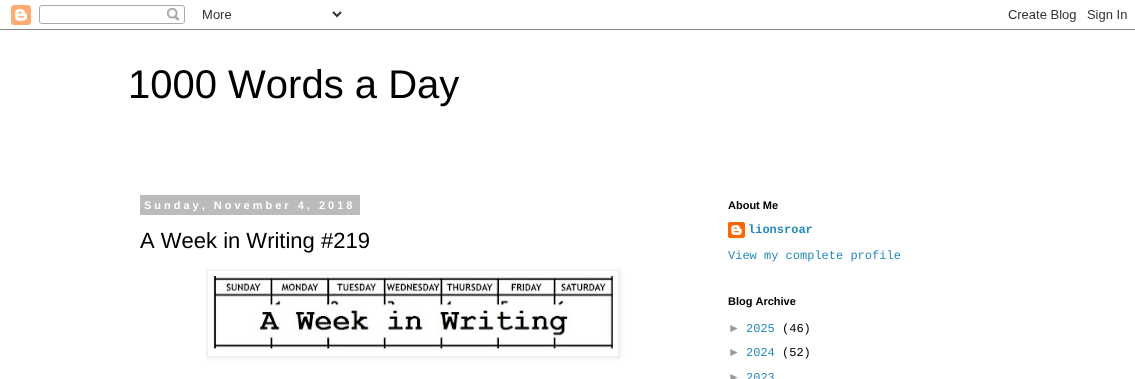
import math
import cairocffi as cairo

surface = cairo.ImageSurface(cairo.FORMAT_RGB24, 1135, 379)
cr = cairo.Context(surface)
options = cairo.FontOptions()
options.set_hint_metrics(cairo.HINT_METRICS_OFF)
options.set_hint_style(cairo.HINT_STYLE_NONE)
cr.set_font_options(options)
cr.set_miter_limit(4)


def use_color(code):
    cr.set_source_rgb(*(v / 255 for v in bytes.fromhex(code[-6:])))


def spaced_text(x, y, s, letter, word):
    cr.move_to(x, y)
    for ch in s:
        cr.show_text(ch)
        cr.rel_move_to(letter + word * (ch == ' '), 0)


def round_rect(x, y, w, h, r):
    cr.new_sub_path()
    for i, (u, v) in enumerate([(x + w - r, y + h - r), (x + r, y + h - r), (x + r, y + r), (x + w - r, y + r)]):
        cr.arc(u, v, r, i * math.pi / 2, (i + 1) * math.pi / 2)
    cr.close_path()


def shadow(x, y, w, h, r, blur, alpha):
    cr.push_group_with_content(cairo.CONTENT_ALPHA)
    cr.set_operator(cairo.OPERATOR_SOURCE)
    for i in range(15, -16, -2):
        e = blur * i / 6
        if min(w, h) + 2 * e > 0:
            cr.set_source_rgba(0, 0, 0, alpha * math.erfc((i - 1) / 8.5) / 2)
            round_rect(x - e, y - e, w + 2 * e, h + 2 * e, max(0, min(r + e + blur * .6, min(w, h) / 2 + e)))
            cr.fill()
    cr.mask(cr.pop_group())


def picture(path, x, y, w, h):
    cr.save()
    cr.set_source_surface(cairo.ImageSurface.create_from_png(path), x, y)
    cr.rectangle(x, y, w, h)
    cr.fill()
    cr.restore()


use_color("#ffffff")
cr.paint()
picture("img1.png", 0, 5, 1135, 25)
cr.select_font_face("Liberation Sans")
cr.set_font_size(40)
use_color("#000000")
cr.move_to(128, 98)
cr.show_text("1000 Words a Day")
use_color("#bbbbbb")
cr.rectangle(140, 195, 220, 20)
cr.fill()
cr.select_font_face("Liberation Sans", cairo.FONT_SLANT_NORMAL, cairo.FONT_WEIGHT_BOLD)
cr.set_font_size(11)
use_color("#ffffff")
spaced_text(144, 209, "Sunday, November 4, 2018", 3, 0)
cr.select_font_face("Liberation Sans")
cr.set_font_size(22)
use_color("#000000")
cr.move_to(140, 248)
cr.show_text("A Week in Writing #219")
cr.save()
cr.set_fill_rule(cairo.FILL_RULE_EVEN_ODD)
cr.new_path()
cr.move_to(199, 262)
cr.line_to(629, 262)
cr.line_to(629, 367)
cr.line_to(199, 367)
cr.close_path()
cr.move_to(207, 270)
cr.line_to(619, 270)
cr.line_to(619, 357)
cr.line_to(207, 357)
cr.close_path()
cr.clip()
use_color("#000000")
shadow(208, 271, 412, 87, 0, 2.5, 0.1)
cr.restore()
cr.rectangle(207.5, 270.5, 411, 86)
use_color("#eeeeee")
cr.set_line_width(1)
cr.stroke()
picture("img2.png", 213, 276, 400, 75)
cr.select_font_face("Liberation Sans", cairo.FONT_SLANT_NORMAL, cairo.FONT_WEIGHT_BOLD)
cr.set_font_size(11)
use_color("#000000")
cr.move_to(728, 209)
cr.show_text("About Me")
picture("img3.png", 728, 222, 17, 16)
cr.select_font_face("Liberation Mono", cairo.FONT_SLANT_NORMAL, cairo.FONT_WEIGHT_BOLD)
cr.set_font_size(12)
use_color("#2288bb")
cr.move_to(748, 233)
cr.show_text("lionsroar")
cr.select_font_face("Liberation Mono")
cr.move_to(728, 259)
cr.show_text("View my complete profile")
cr.select_font_face("Liberation Sans", cairo.FONT_SLANT_NORMAL, cairo.FONT_WEIGHT_BOLD)
cr.set_font_size(11)
use_color("#000000")
cr.move_to(728, 305)
cr.show_text("Blog Archive")
cr.select_font_face("Liberation Sans")
cr.set_font_size(12)
use_color("#999999")
cr.move_to(728, 332)
cr.show_text("►")
cr.select_font_face("Liberation Mono")
use_color("#2288bb")
cr.move_to(746, 332)
cr.show_text("2025")
use_color("#000000")
cr.move_to(782, 332)
cr.show_text("(46)")
cr.select_font_face("Liberation Sans")
use_color("#999999")
cr.move_to(728, 356)
cr.show_text("►")
cr.select_font_face("Liberation Mono")
use_color("#2288bb")
cr.move_to(746, 356)
cr.show_text("2024")
use_color("#000000")
cr.move_to(782, 356)
cr.show_text("(52)")
cr.select_font_face("Liberation Sans")
use_color("#999999")
cr.move_to(728, 381)
cr.show_text("►")
cr.select_font_face("Liberation Mono")
use_color("#2288bb")
cr.move_to(746, 381)
cr.show_text("2023")
surface.write_to_png("result.png")
